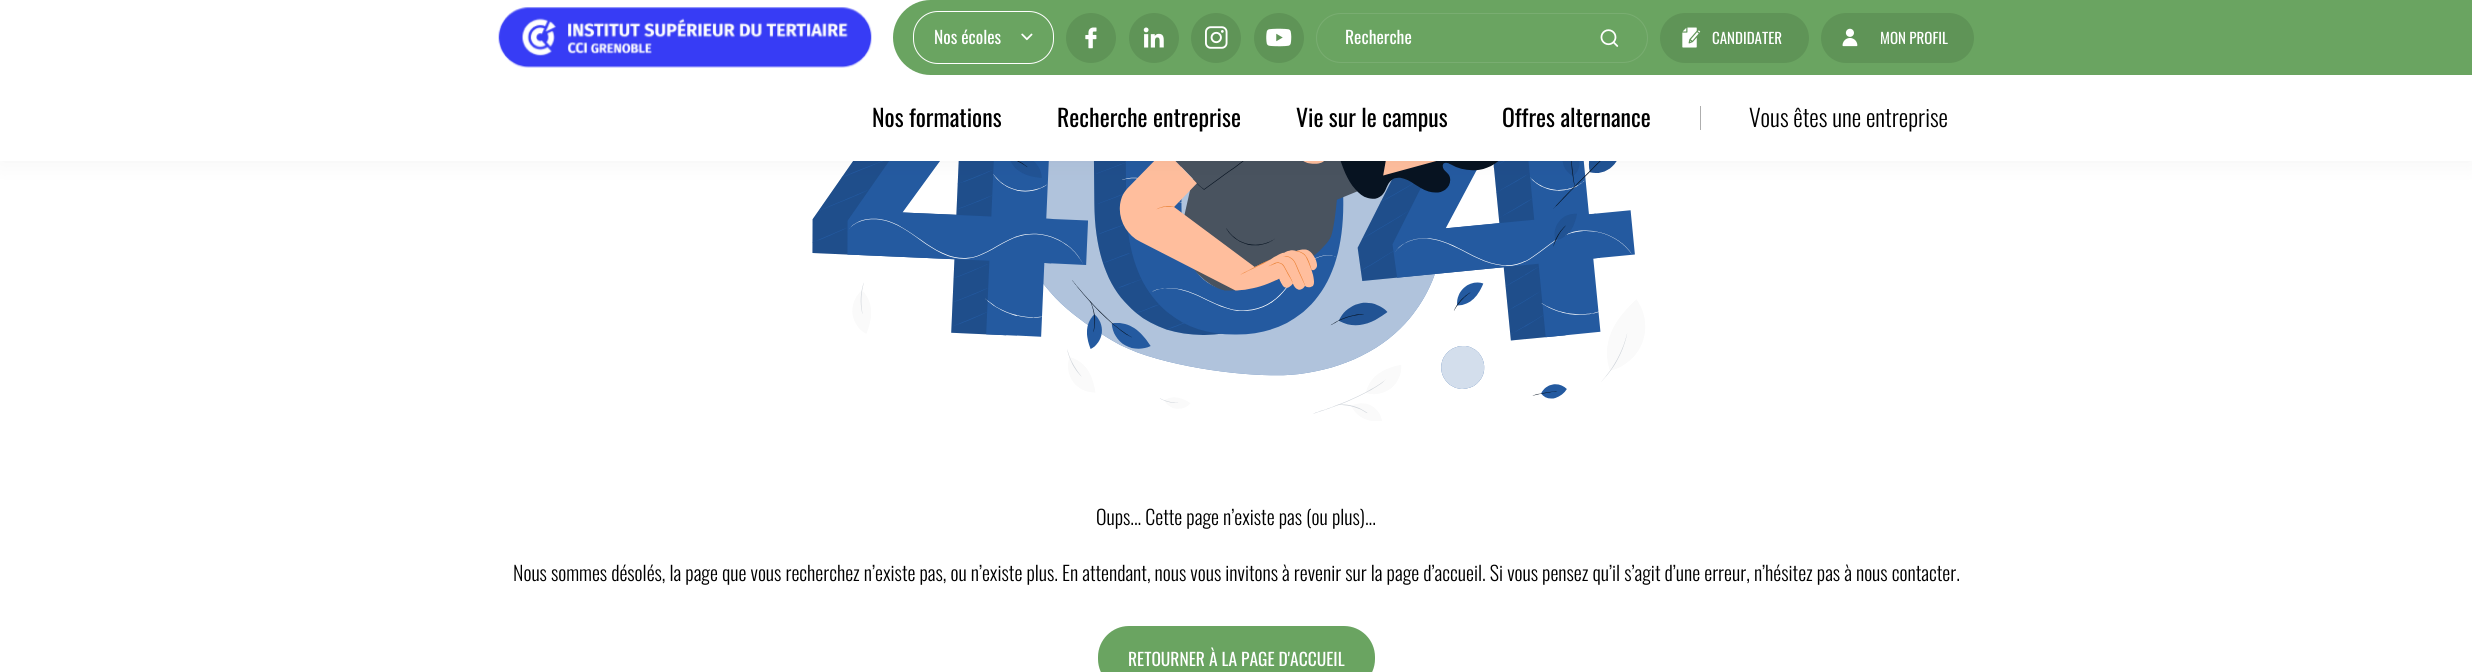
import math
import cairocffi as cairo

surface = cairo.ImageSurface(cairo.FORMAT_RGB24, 2472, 672)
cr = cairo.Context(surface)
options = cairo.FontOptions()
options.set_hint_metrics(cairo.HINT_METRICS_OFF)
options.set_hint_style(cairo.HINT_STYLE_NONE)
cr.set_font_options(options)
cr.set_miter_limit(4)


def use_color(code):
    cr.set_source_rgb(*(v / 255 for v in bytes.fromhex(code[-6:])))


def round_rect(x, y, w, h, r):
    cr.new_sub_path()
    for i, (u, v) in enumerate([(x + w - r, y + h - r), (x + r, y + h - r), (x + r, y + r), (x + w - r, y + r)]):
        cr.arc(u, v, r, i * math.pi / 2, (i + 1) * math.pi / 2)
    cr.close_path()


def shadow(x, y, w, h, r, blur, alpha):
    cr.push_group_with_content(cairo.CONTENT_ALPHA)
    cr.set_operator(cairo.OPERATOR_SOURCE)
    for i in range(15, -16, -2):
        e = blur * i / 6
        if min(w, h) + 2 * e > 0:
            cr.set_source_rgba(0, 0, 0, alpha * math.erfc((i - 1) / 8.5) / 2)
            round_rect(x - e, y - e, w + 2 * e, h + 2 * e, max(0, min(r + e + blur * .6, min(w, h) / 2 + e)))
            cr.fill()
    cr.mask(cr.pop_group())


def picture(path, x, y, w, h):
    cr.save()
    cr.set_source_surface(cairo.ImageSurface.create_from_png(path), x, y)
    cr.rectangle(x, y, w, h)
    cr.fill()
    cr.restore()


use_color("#ffffff")
cr.paint()
picture("img10.png", 812, 161, 834, 260)
use_color("#000000")
shadow(0, 0, 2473, 161, 0, 12.5, 0.05)
use_color("#ffffff")
cr.rectangle(0, 0, 2472, 161)
cr.fill()
picture("img1.png", 498, 7, 374, 61)
use_color("#6aa461")
cr.new_path()
cr.move_to(930.5, 0)
cr.line_to(1974, 0)
cr.line_to(1974, 75)
cr.line_to(930.5, 75)
cr.curve_to(910, 75, 893, 58, 893, 37.5)
cr.curve_to(893, 17, 910, 0, 930.5, 0)
cr.close_path()
cr.fill()
round_rect(913.5, 11.5, 140, 52, 24.5)
use_color("#ffffff")
cr.set_line_width(1)
cr.stroke()
cr.select_font_face("Oswald")
cr.set_font_size(17.5)
cr.move_to(934, 44)
cr.show_text("Nos écoles")
picture("img2.png", 1021, 33, 12, 8)
use_color("#5f9457")
cr.arc(1091, 38, 25, 0, 2 * math.pi)
cr.fill()
picture("img3.png", 1085, 27, 12, 22)
cr.arc(1154, 38, 25, 0, 2 * math.pi)
cr.fill()
picture("img4.png", 1143, 27, 21, 21)
cr.arc(1216, 38, 25, 0, 2 * math.pi)
cr.fill()
picture("img5.png", 1205, 26, 23, 23)
cr.arc(1279, 38, 25, 0, 2 * math.pi)
cr.fill()
picture("img6.png", 1266, 28, 26, 19)
round_rect(1316.5, 13.5, 331, 49, 24.5)
use_color("#79ad71")
cr.stroke()
use_color("#ffffff")
cr.move_to(1345, 44)
cr.show_text("Recherche")
picture("img7.png", 1600, 29, 19, 18)
use_color("#5f9457")
round_rect(1660, 13, 149, 50, 25)
cr.fill()
picture("img8.png", 1682, 27, 19, 21)
cr.set_font_size(15)
use_color("#ffffff")
cr.move_to(1712, 44)
cr.show_text("CANDIDATER")
use_color("#5f9457")
round_rect(1821, 13, 153, 50, 25)
cr.fill()
picture("img9.png", 1842, 28, 16, 19)
use_color("#ffffff")
cr.move_to(1880, 44)
cr.show_text("MON PROFIL")
use_color("#6aa461")
cr.rectangle(1974, 0, 498, 75)
cr.fill()
cr.set_font_size(23.75)
use_color("#000000")
cr.move_to(872, 127)
cr.show_text("Nos formations")
cr.move_to(1057, 127)
cr.show_text("Recherche entreprise")
cr.move_to(1296, 127)
cr.show_text("Vie sur le campus")
cr.move_to(1502, 127)
cr.show_text("Offres alternance")
use_color("#aeaeae")
cr.rectangle(1700, 106, 1, 24)
cr.fill()
cr.select_font_face("Oswald Light")
use_color("#000000")
cr.move_to(1749, 127)
cr.show_text("Vous êtes une entreprise")
cr.set_font_size(20)
cr.move_to(1096, 525)
cr.show_text("Oups... Cette page n’existe pas (ou plus)...")
cr.move_to(513, 581)
cr.show_text("Nous sommes désolés, la page que vous recherchez n’existe pas, ou n’existe plus. En attendant, nous vous invitons à revenir sur la page d’accueil. Si vous pensez qu’il s’agit d’une erreur, n’hésitez pas à nous contacter.")
use_color("#6aa461")
round_rect(1098, 626, 277, 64, 31)
cr.fill()
cr.select_font_face("Oswald")
cr.set_font_size(17.5)
use_color("#ffffff")
cr.move_to(1128, 666)
cr.show_text("RETOURNER À LA PAGE D'ACCUEIL")
surface.write_to_png("result.png")
